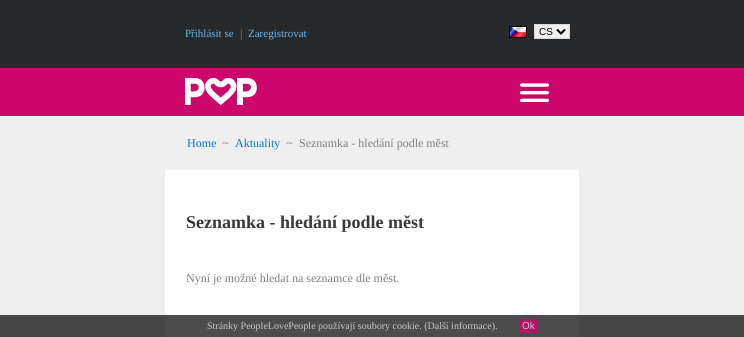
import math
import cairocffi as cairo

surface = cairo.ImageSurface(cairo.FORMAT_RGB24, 744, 337)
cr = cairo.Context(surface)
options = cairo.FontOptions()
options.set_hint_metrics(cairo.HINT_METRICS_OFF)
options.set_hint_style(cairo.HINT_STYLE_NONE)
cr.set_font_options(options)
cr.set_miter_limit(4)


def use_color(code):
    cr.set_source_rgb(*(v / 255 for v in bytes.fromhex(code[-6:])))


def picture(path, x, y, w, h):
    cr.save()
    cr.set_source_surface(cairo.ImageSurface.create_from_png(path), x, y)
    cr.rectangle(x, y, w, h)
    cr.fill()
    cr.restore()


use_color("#efefef")
cr.paint()
use_color("#28292b")
cr.rectangle(0, 0, 744, 68)
cr.fill()
cr.select_font_face("Liberation Serif")
cr.set_font_size(11)
use_color("#64b9f4")
cr.move_to(185, 37)
cr.show_text("Přihlásit se")
cr.set_font_size(12)
use_color("#7e7f82")
cr.move_to(240, 37)
cr.show_text("|")
cr.set_font_size(11)
use_color("#64b9f4")
cr.move_to(248, 37)
cr.show_text("Zaregistrovat")
picture("img1.png", 509, 26, 18, 12)
use_color("#efefef")
cr.rectangle(534.5, 24.5, 35, 14)
cr.fill_preserve()
use_color("#dbd7d7")
cr.set_line_width(1)
cr.stroke()
cr.new_path()
cr.move_to(557, 29.5)
cr.line_to(561, 33.5)
cr.line_to(565, 29.5)
use_color("#000000")
cr.set_line_width(2)
cr.stroke()
cr.select_font_face("Liberation Sans")
cr.set_font_size(10)
cr.move_to(539, 35)
cr.show_text("CS")
use_color("#cd066b")
cr.rectangle(0, 68, 744, 48)
cr.fill()
picture("img2.png", 185, 78, 72, 27)
picture("img3.png", 520, 83, 29, 19)
cr.select_font_face("Liberation Serif")
cr.set_font_size(12)
use_color("#0178cb")
cr.move_to(187, 147)
cr.show_text("Home")
use_color("#7e7f82")
cr.move_to(222, 147)
cr.show_text("~")
use_color("#0178cb")
cr.move_to(235, 147)
cr.show_text("Aktuality")
use_color("#7e7f82")
cr.move_to(286, 147)
cr.show_text("~")
cr.move_to(299, 147)
cr.show_text("Seznamka - hledání podle měst")
use_color("#ffffff")
cr.rectangle(165, 170, 414, 167)
cr.fill()
cr.select_font_face("Liberation Serif", cairo.FONT_SLANT_NORMAL, cairo.FONT_WEIGHT_BOLD)
cr.set_font_size(18)
use_color("#39393a")
cr.move_to(186, 228)
cr.show_text("Seznamka - hledání podle měst")
cr.select_font_face("Liberation Serif")
cr.set_font_size(12)
use_color("#7e7f82")
cr.move_to(186, 282)
cr.show_text("Nyní je možné hledat na seznamce dle měst.")
cr.set_source_rgba(0, 0, 0, 0.7)
cr.rectangle(0, 315, 744, 22)
cr.fill()
cr.set_font_size(10)
use_color("#c9c9c9")
cr.move_to(207, 329)
cr.show_text("Stránky PeopleLovePeople používají soubory cookie. (Další informace).")
cr.set_source_rgba(0.804, 0.024, 0.42, 0.7)
cr.rectangle(520, 319, 17, 14)
cr.fill()
cr.rectangle(520.5, 319.5, 16, 13)
cr.set_line_width(1)
cr.stroke()
cr.select_font_face("Liberation Sans")
use_color("#e4bbd0")
cr.move_to(522, 329)
cr.show_text("Ok")
surface.write_to_png("result.png")
